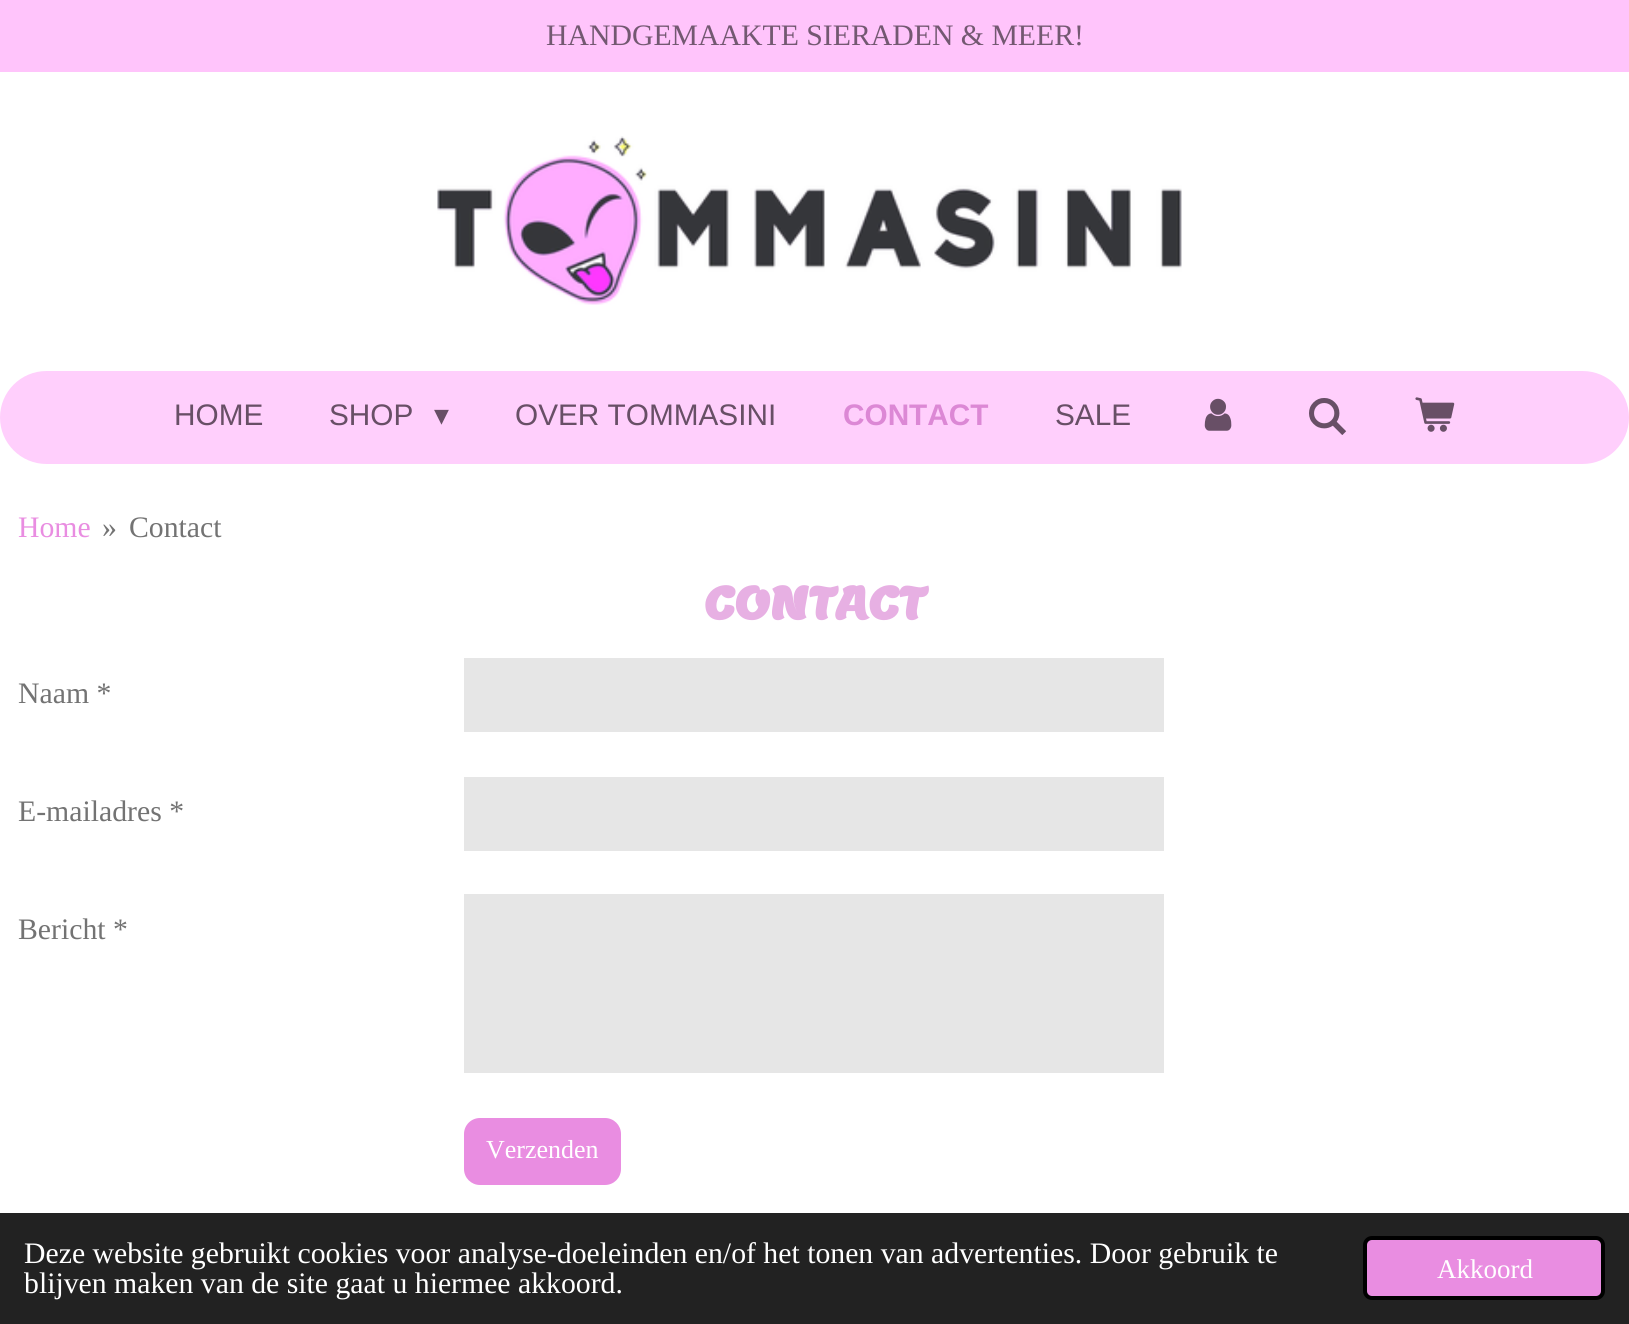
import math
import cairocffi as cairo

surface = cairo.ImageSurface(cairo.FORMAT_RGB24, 1629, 1324)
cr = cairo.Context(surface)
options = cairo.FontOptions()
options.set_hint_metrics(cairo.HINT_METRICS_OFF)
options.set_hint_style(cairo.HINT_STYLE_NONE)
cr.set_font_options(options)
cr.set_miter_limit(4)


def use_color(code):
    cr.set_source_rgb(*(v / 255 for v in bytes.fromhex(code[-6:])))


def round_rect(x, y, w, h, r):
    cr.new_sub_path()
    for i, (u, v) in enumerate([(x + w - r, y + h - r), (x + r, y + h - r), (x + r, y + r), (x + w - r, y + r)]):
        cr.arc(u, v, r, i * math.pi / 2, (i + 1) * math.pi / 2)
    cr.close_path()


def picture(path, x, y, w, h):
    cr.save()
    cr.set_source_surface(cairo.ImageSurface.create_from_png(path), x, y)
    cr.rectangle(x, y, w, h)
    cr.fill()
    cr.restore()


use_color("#ffffff")
cr.paint()
use_color("#ffc4fb")
cr.rectangle(0, 0, 1629, 72)
cr.fill()
cr.select_font_face("Liberation Serif")
cr.set_font_size(29.75)
use_color("#735871")
cr.move_to(546, 45)
cr.show_text("HANDGEMAAKTE SIERADEN & MEER!")
picture("img1.png", 437, 136, 745, 169)
use_color("#ffcffc")
round_rect(0, 371, 1629, 93, 46.5)
cr.fill()
cr.select_font_face("Liberation Sans")
use_color("#684f66")
cr.move_to(174, 425)
cr.show_text("HOME")
cr.move_to(329, 425)
cr.show_text("SHOP")
cr.select_font_face("DejaVu Sans")
cr.move_to(434, 425)
cr.show_text("▾")
cr.select_font_face("Liberation Sans")
cr.move_to(515, 425)
cr.show_text("OVER TOMMASINI")
cr.select_font_face("Liberation Sans", cairo.FONT_SLANT_NORMAL, cairo.FONT_WEIGHT_BOLD)
use_color("#dc88d5")
cr.move_to(843, 425)
cr.show_text("CONTACT")
cr.select_font_face("Liberation Sans")
use_color("#684f66")
cr.move_to(1055, 425)
cr.show_text("SALE")
picture("img2.png", 1204, 398, 28, 33)
picture("img3.png", 1309, 398, 38, 37)
picture("img4.png", 1415, 397, 40, 35)
cr.select_font_face("Liberation Serif")
use_color("#e98de1")
cr.move_to(18, 537)
cr.show_text("Home")
use_color("#737373")
cr.move_to(102, 537)
cr.show_text("»")
cr.move_to(129, 537)
cr.show_text("Contact")
cr.select_font_face("Lemon", cairo.FONT_SLANT_NORMAL, cairo.FONT_WEIGHT_BOLD)
cr.set_font_size(45)
use_color("#e7b0e3")
cr.move_to(704, 619)
cr.show_text("CONTACT")
cr.select_font_face("Liberation Serif")
cr.set_font_size(29.75)
use_color("#737373")
cr.move_to(18, 703)
cr.show_text("Naam *")
use_color("#e6e6e6")
cr.rectangle(464, 658, 700, 74)
cr.fill()
use_color("#737373")
cr.move_to(18, 821)
cr.show_text("E-mailadres *")
use_color("#e6e6e6")
cr.rectangle(464, 777, 700, 74)
cr.fill()
use_color("#737373")
cr.move_to(18, 939)
cr.show_text("Bericht *")
use_color("#e6e6e6")
cr.rectangle(464, 894, 700, 179)
cr.fill()
use_color("#e98de1")
round_rect(464, 1118, 157, 67, 16)
cr.fill()
cr.set_font_size(26)
use_color("#ffffff")
cr.move_to(486, 1158)
cr.show_text("Verzenden")
use_color("#222222")
cr.rectangle(0, 1213, 1629, 111)
cr.fill()
cr.set_font_size(29.75)
use_color("#ffffff")
cr.move_to(24, 1263)
cr.show_text("Deze website gebruikt cookies voor analyse-doeleinden en/of het tonen van advertenties. Door gebruik te")
cr.move_to(24, 1293)
cr.show_text("blijven maken van de site gaat u hiermee akkoord.")
use_color("#e98de1")
round_rect(1365, 1238, 238, 60, 7)
cr.fill_preserve()
use_color("#000000")
cr.set_line_width(4)
cr.stroke()
cr.set_font_size(27)
use_color("#ffffff")
cr.move_to(1437, 1278)
cr.show_text("Akkoord")
surface.write_to_png("result.png")
